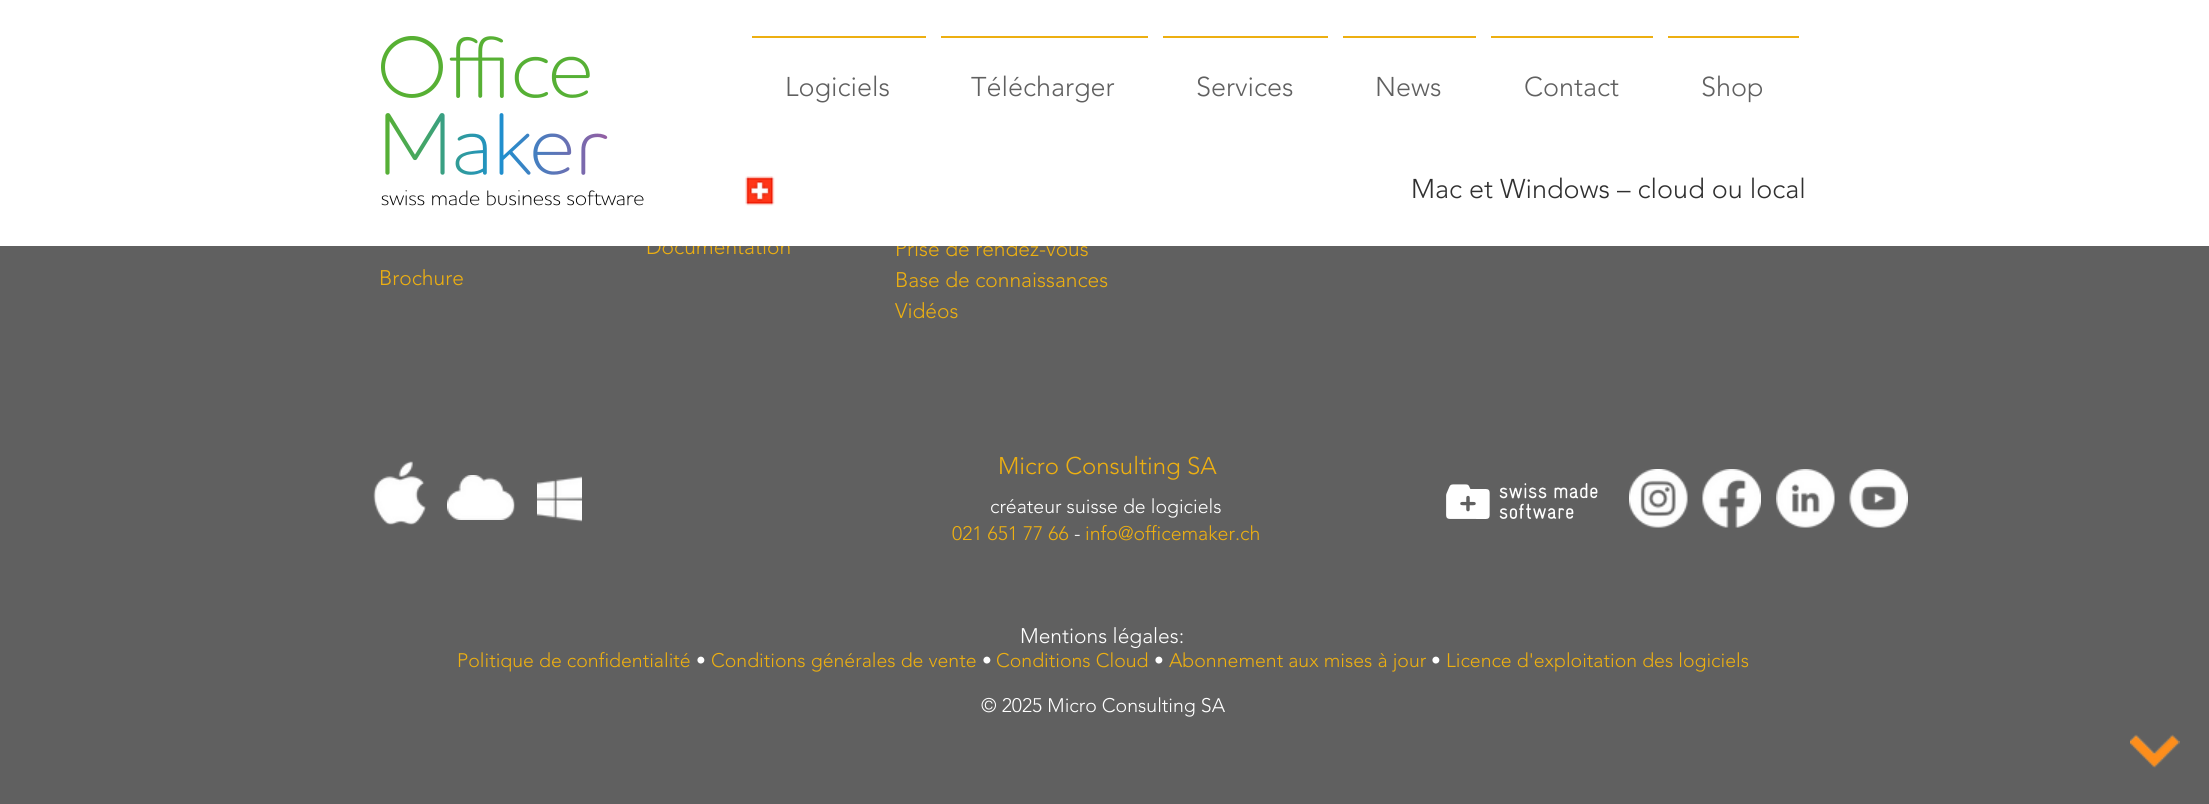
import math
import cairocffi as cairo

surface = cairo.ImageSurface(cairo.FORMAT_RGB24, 2209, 804)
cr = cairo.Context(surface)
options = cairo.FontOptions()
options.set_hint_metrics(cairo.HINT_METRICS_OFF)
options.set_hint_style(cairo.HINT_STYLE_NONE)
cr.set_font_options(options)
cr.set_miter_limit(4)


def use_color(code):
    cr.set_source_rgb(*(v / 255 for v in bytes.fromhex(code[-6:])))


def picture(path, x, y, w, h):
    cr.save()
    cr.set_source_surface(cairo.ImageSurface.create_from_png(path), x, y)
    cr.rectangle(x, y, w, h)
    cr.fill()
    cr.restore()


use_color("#606060")
cr.paint()
cr.select_font_face("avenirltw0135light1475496 Light")
cr.set_font_size(21)
use_color("#edaf11")
cr.move_to(646, 254)
cr.show_text("Documentation")
cr.move_to(895, 256)
cr.show_text("Prise de rendez-vous")
use_color("#ffffff")
cr.rectangle(0, 0, 2209, 246)
cr.fill()
picture("img1.png", 381, 36, 263, 170)
use_color("#edaf11")
cr.rectangle(752, 36, 174, 2)
cr.fill()
cr.set_font_size(27)
use_color("#606060")
cr.move_to(785, 96)
cr.show_text("Logiciels")
use_color("#edaf11")
cr.rectangle(941, 36, 207, 2)
cr.fill()
use_color("#606060")
cr.move_to(971, 96)
cr.show_text("Télécharger")
use_color("#edaf11")
cr.rectangle(1163, 36, 165, 2)
cr.fill()
use_color("#606060")
cr.move_to(1196, 96)
cr.show_text("Services")
use_color("#edaf11")
cr.rectangle(1343, 36, 133, 2)
cr.fill()
use_color("#606060")
cr.move_to(1375, 96)
cr.show_text("News")
use_color("#edaf11")
cr.rectangle(1491, 36, 162, 2)
cr.fill()
use_color("#606060")
cr.move_to(1524, 96)
cr.show_text("Contact")
use_color("#edaf11")
cr.rectangle(1668, 36, 131, 2)
cr.fill()
use_color("#606060")
cr.move_to(1701, 96)
cr.show_text("Shop")
picture("img2.png", 745, 176, 30, 30)
use_color("#303030")
cr.move_to(1411, 198)
cr.show_text("Mac et Windows – cloud ou local")
cr.set_font_size(21)
use_color("#edaf11")
cr.move_to(379, 285)
cr.show_text("Brochure")
cr.move_to(895, 287)
cr.show_text("Base de connaissances")
cr.move_to(895, 318)
cr.show_text("Vidéos")
picture("img3.png", 373, 461, 53, 64)
picture("img4.png", 447, 475, 68, 45)
picture("img5.png", 537, 476, 45, 46)
cr.set_font_size(24)
cr.move_to(998, 474)
cr.show_text("Micro Consulting SA")
cr.set_font_size(19.5)
use_color("#ffffff")
cr.move_to(990, 513)
cr.show_text("créateur suisse de logiciels")
use_color("#edaf11")
cr.move_to(952, 540)
cr.show_text("021 651 77 66")
use_color("#ffffff")
cr.move_to(1074, 540)
cr.show_text("-")
use_color("#edaf11")
cr.move_to(1085, 540)
cr.show_text("info@officemaker.ch")
picture("img6.png", 1446, 483, 152, 36)
picture("img7.png", 1629, 469, 59, 59)
picture("img8.png", 1702, 469, 59, 59)
picture("img9.png", 1776, 469, 59, 59)
picture("img10.png", 1849, 469, 59, 59)
cr.set_font_size(21)
use_color("#ffffff")
cr.move_to(1020, 643)
cr.show_text("Mentions légales:")
cr.set_font_size(19.5)
use_color("#edaf11")
cr.move_to(457, 667)
cr.show_text("Politique de confidentialité")
use_color("#ffffff")
cr.move_to(696, 667)
cr.show_text("•")
use_color("#edaf11")
cr.move_to(711, 667)
cr.show_text("Conditions générales de vente")
use_color("#ffffff")
cr.move_to(982, 667)
cr.show_text("•")
use_color("#edaf11")
cr.move_to(996, 667)
cr.show_text("Conditions Cloud")
use_color("#ffffff")
cr.move_to(1154, 667)
cr.show_text("•")
use_color("#edaf11")
cr.move_to(1169, 667)
cr.show_text("Abonnement aux mises à jour")
use_color("#ffffff")
cr.move_to(1431, 667)
cr.show_text("•")
use_color("#edaf11")
cr.move_to(1446, 667)
cr.show_text("Licence d'exploitation des logiciels")
use_color("#ffffff")
cr.move_to(981, 712)
cr.show_text("© 2025 Micro Consulting SA")
picture("img11.png", 2130, 734, 50, 34)
surface.write_to_png("result.png")
